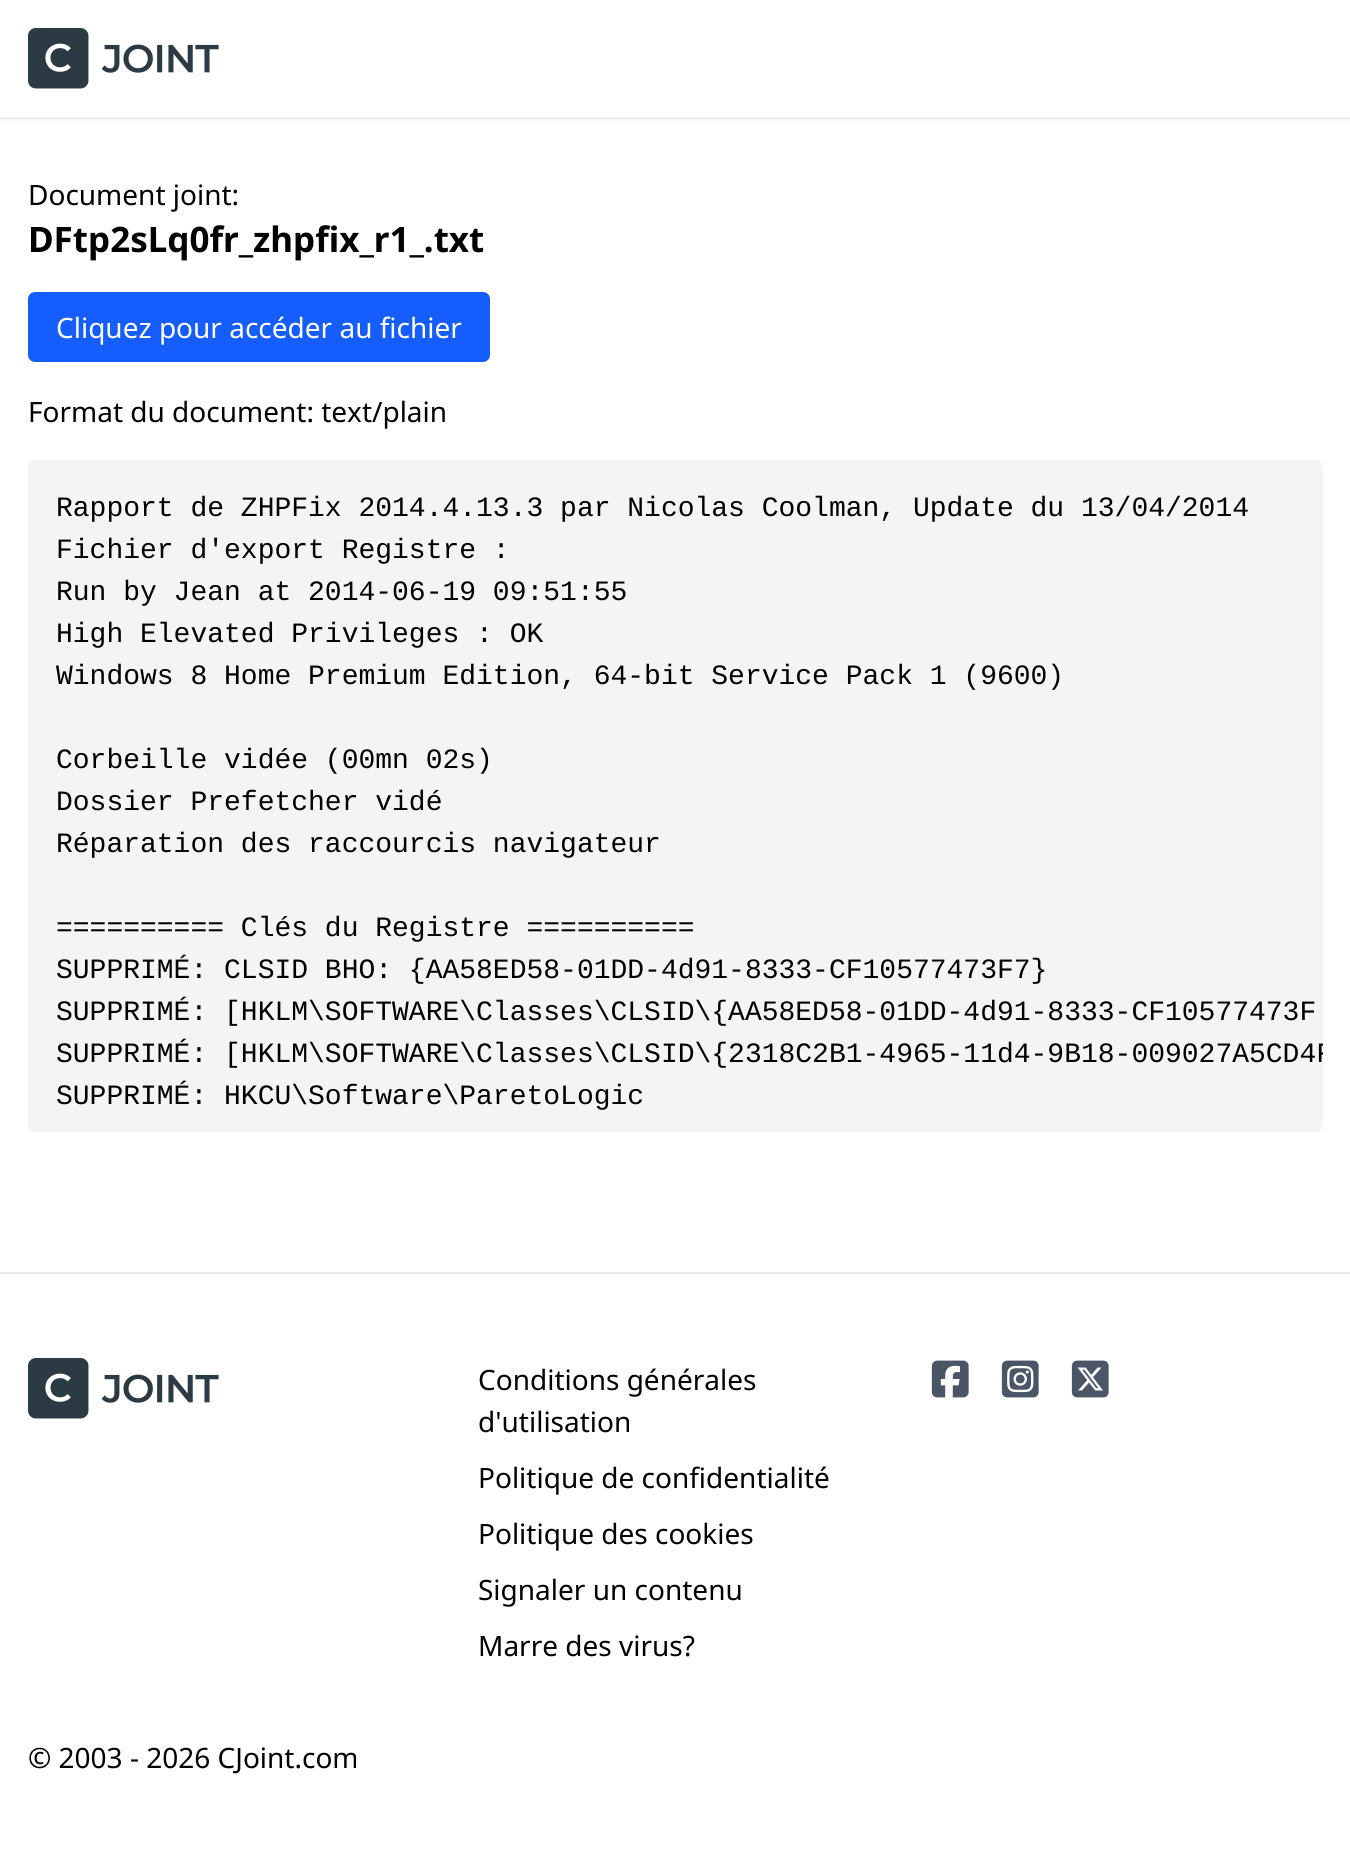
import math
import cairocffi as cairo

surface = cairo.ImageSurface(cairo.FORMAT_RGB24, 1350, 1863)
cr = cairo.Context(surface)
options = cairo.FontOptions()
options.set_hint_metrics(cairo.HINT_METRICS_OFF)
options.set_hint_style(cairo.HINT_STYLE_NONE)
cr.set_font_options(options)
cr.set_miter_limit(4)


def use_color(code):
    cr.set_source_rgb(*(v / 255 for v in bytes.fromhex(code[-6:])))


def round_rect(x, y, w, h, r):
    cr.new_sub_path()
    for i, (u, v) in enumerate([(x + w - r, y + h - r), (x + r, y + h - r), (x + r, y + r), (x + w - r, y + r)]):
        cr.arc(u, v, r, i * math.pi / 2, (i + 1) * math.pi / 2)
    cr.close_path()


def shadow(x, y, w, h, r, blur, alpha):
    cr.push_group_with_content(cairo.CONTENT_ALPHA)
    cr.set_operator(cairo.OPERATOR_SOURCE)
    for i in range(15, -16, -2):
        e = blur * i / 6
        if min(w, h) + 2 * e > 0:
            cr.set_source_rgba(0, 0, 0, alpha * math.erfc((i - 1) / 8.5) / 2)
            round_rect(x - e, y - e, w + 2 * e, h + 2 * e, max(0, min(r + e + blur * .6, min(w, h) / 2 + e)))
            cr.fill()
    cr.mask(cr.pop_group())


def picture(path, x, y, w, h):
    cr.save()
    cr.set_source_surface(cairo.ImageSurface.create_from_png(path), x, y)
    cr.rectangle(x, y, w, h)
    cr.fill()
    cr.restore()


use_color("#ffffff")
cr.paint()
cr.save()
cr.rectangle(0, 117, 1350, 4)
cr.clip()
use_color("#000000")
shadow(0, 2, 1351, 117, 0, 2.5, 0.1)
cr.restore()
picture("img1.png", 28, 28, 191, 61)
cr.select_font_face("Noto Sans")
cr.set_font_size(28)
use_color("#000000")
cr.move_to(28, 205)
cr.show_text("Document joint:")
cr.select_font_face("Noto Sans", cairo.FONT_SLANT_NORMAL, cairo.FONT_WEIGHT_BOLD)
cr.set_font_size(35)
cr.move_to(28, 252)
cr.show_text("DFtp2sLq0fr_zhpfix_r1_.txt")
use_color("#155dfc")
round_rect(28, 292, 462, 70, 7)
cr.fill()
cr.select_font_face("Noto Sans")
cr.set_font_size(28)
use_color("#ffffff")
cr.move_to(56, 338)
cr.show_text("Cliquez pour accéder au fichier")
use_color("#000000")
cr.move_to(28, 422)
cr.show_text("Format du document: text/plain")
use_color("#f3f4f6")
round_rect(28, 460, 1295, 672, 7)
cr.fill()
cr.select_font_face("Liberation Mono")
use_color("#000000")
cr.move_to(56, 516)
cr.show_text("Rapport de ZHPFix 2014.4.13.3 par Nicolas Coolman, Update du 13/04/2014")
cr.move_to(56, 558)
cr.show_text("Fichier d'export Registre :")
cr.move_to(56, 600)
cr.show_text("Run by Jean at 2014-06-19 09:51:55")
cr.move_to(56, 642)
cr.show_text("High Elevated Privileges : OK")
cr.move_to(56, 684)
cr.show_text("Windows 8 Home Premium Edition, 64-bit Service Pack 1 (9600)")
cr.move_to(56, 768)
cr.show_text("Corbeille vidée (00mn 02s)")
cr.move_to(56, 810)
cr.show_text("Dossier Prefetcher vidé")
cr.move_to(56, 852)
cr.show_text("Réparation des raccourcis navigateur")
cr.move_to(56, 936)
cr.show_text("========== Clés du Registre ==========")
cr.move_to(56, 978)
cr.show_text("SUPPRIMÉ: CLSID BHO: {AA58ED58-01DD-4d91-8333-CF10577473F7}")
cr.move_to(56, 1020)
cr.show_text("SUPPRIMÉ: [HKLM\\SOFTWARE\\Classes\\CLSID\\{AA58ED58-01DD-4d91-8333-CF10577473F")
cr.save()
round_rect(28, 460, 1295, 672, 7)
cr.clip()
cr.move_to(56, 1062)
cr.show_text("SUPPRIMÉ: [HKLM\\SOFTWARE\\Classes\\CLSID\\{2318C2B1-4965-11d4-9B18-009027A5CD4F")
cr.restore()
cr.move_to(56, 1104)
cr.show_text("SUPPRIMÉ: HKCU\\Software\\ParetoLogic")
use_color("#e5e7eb")
cr.rectangle(0, 1272, 1350, 2)
cr.fill()
picture("img1.png", 28, 1358, 191, 61)
cr.select_font_face("Noto Sans")
use_color("#000000")
cr.move_to(478, 1390)
cr.show_text("Conditions générales")
cr.move_to(478, 1432)
cr.show_text("d'utilisation")
cr.move_to(478, 1488)
cr.show_text("Politique de confidentialité")
cr.move_to(478, 1544)
cr.show_text("Politique des cookies")
cr.move_to(478, 1600)
cr.show_text("Signaler un contenu")
cr.move_to(478, 1656)
cr.show_text("Marre des virus?")
picture("img2.png", 931, 1360, 38, 38)
picture("img3.png", 1001, 1360, 38, 38)
picture("img4.png", 1071, 1360, 38, 38)
cr.move_to(28, 1768)
cr.show_text("© 2003 - 2026 CJoint.com")
surface.write_to_png("result.png")
